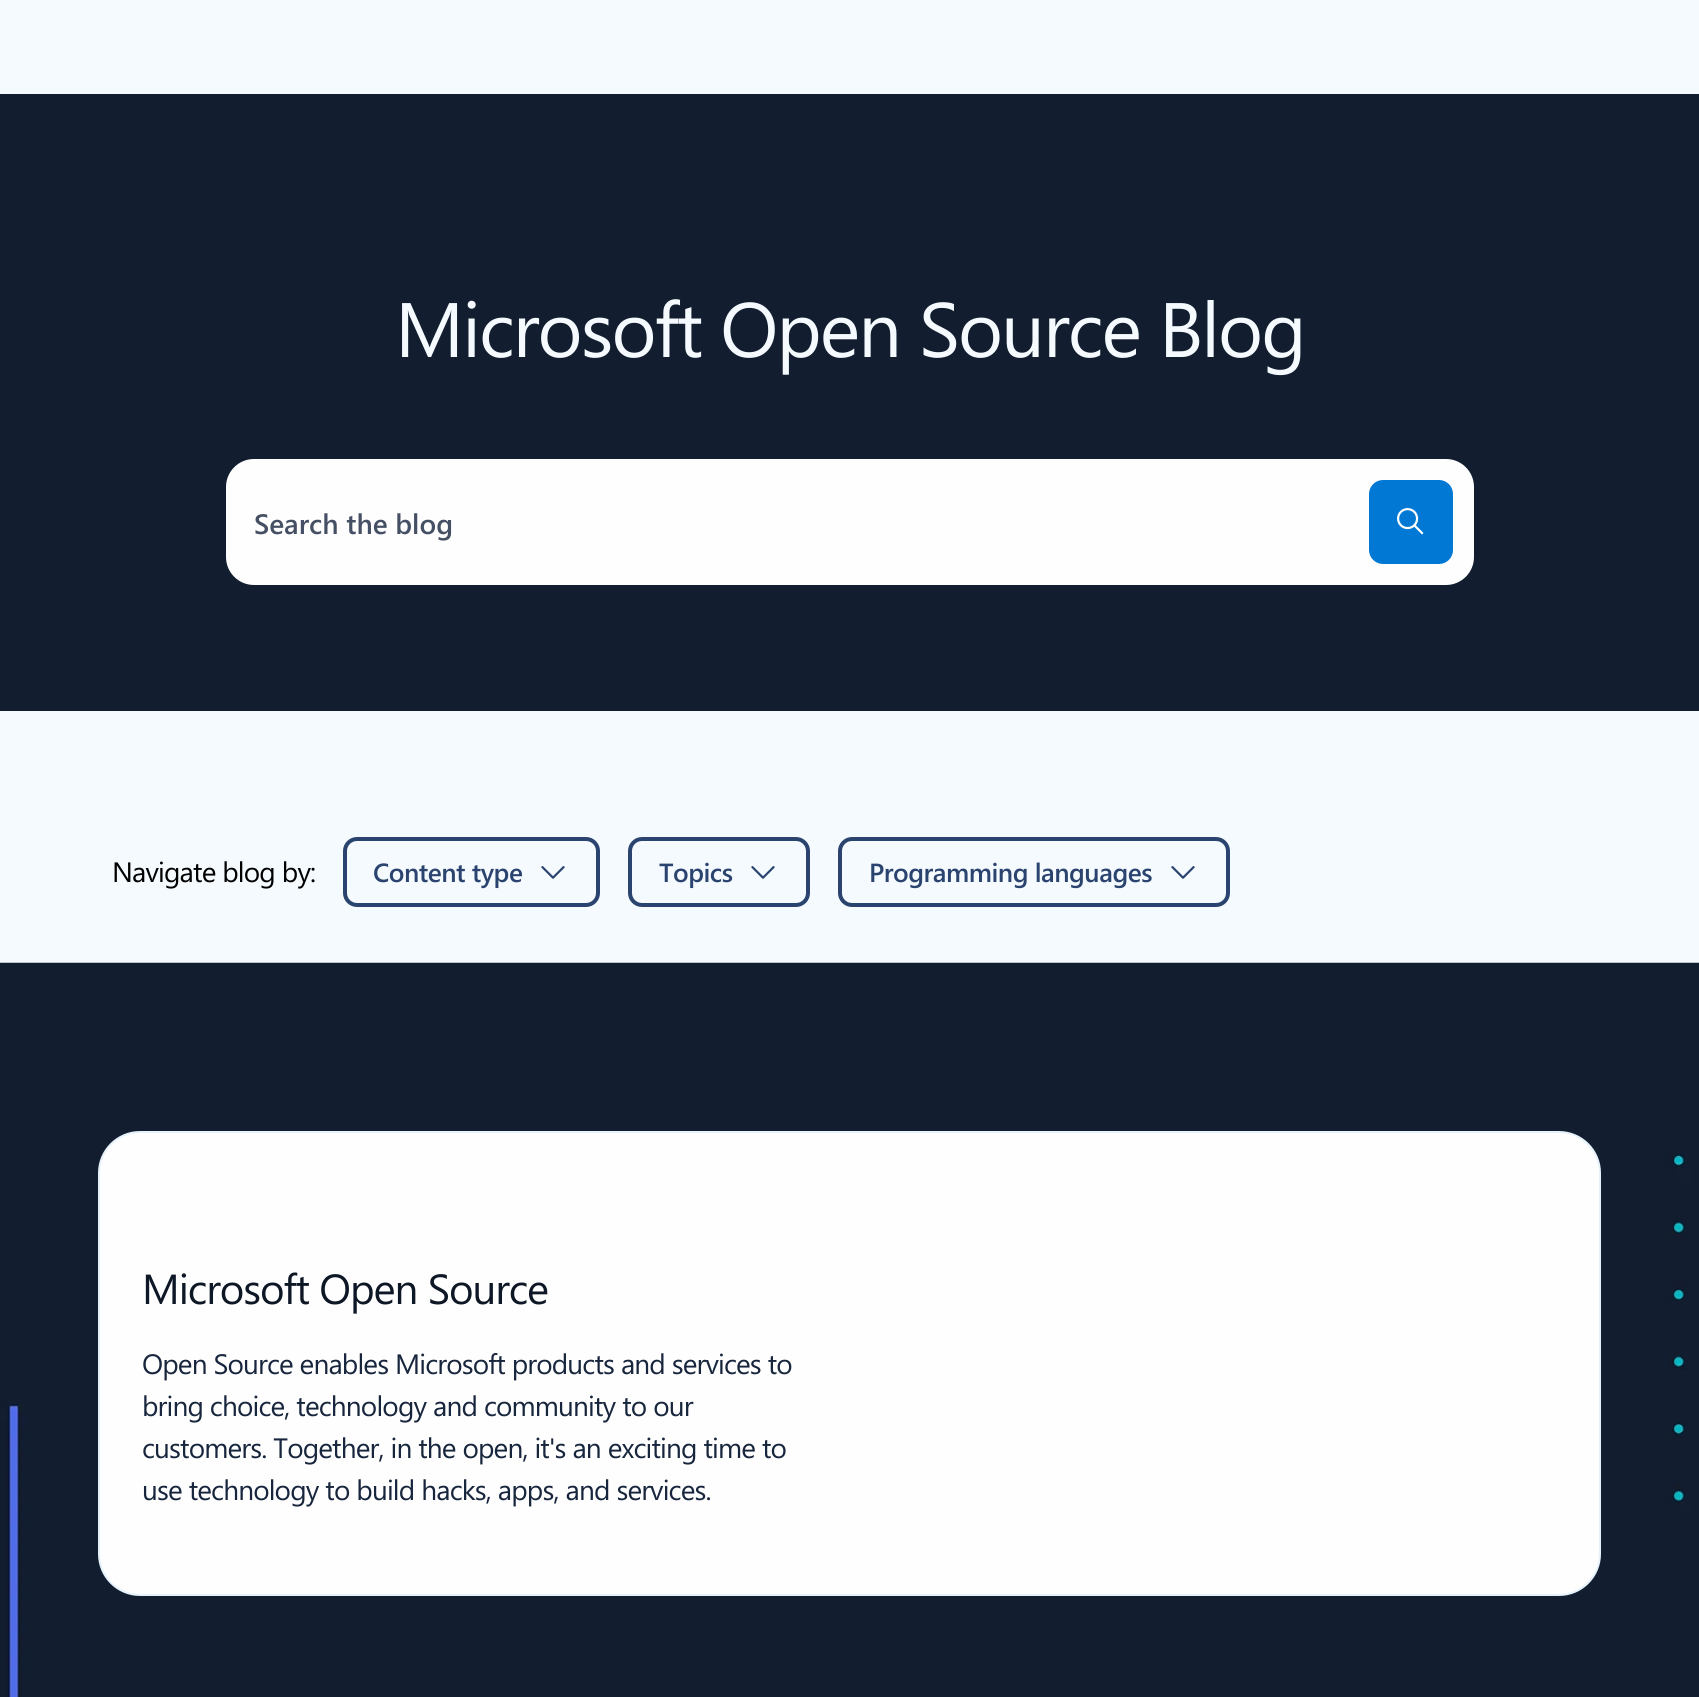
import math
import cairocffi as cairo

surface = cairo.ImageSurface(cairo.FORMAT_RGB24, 1699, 1697)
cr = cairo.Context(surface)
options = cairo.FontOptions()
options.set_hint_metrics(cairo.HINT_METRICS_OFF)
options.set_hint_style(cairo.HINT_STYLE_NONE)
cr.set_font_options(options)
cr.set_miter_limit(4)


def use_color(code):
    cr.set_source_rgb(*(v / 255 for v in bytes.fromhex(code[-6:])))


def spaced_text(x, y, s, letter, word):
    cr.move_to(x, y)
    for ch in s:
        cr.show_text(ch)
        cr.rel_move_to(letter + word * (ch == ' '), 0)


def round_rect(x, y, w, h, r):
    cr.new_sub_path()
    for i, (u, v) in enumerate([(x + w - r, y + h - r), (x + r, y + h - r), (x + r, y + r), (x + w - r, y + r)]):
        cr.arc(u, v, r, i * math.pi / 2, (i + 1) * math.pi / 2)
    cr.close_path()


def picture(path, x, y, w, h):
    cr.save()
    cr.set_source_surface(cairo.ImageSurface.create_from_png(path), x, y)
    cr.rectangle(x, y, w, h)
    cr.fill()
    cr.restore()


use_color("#f4fafd")
cr.paint()
use_color("#121d30")
cr.rectangle(0, 94, 1699, 617)
cr.fill()
cr.select_font_face("Segoe UI")
cr.set_font_size(77)
use_color("#f4fafd")
spaced_text(395, 357, "Microsoft Open Source Blog", -1.9, 0)
use_color("#fefefe")
round_rect(226, 459, 1248, 126, 28)
cr.fill()
cr.select_font_face("Segoe UI SemiBold")
cr.set_font_size(28)
use_color("#455064")
cr.move_to(254, 534)
cr.show_text("Search the blog")
use_color("#0078d4")
round_rect(1369, 480, 84, 84, 14)
cr.fill()
picture("img1.png", 1397, 508, 27, 27)
cr.select_font_face("Segoe UI")
use_color("#000000")
spaced_text(112, 882, "Navigate blog by:", -0.85, 0)
round_rect(345, 839, 253, 66, 12)
use_color("#2a446f")
cr.set_line_width(4)
cr.stroke()
cr.select_font_face("Segoe UI SemiBold")
cr.set_font_size(26.25)
spaced_text(373, 882, "Content type", -0.5, 0)
picture("img2.png", 541, 866, 24, 13)
round_rect(630, 839, 178, 66, 12)
cr.stroke()
spaced_text(659, 882, "Topics", -0.5, 0)
picture("img2.png", 751, 866, 24, 13)
round_rect(840, 839, 388, 66, 12)
cr.stroke()
spaced_text(869, 882, "Programming languages", -0.5, 0)
picture("img2.png", 1171, 866, 24, 13)
picture("img3.png", 0, 962, 1699, 735)
use_color("#fefefe")
round_rect(99, 1132, 1501, 463, 41)
cr.fill_preserve()
use_color("#e6f2fb")
cr.set_line_width(2)
cr.stroke()
cr.select_font_face("Segoe UI")
cr.set_font_size(42)
use_color("#0e1726")
spaced_text(142, 1304, "Microsoft Open Source", -1.05, 0)
cr.set_font_size(28)
use_color("#17253d")
spaced_text(142, 1374, "Open Source enables Microsoft products and services to", -0.85, 0)
spaced_text(142, 1416, "bring choice, technology and community to our", -0.85, 0)
spaced_text(142, 1458, "customers. Together, in the open, it's an exciting time to", -0.85, 0)
spaced_text(142, 1500, "use technology to build hacks, apps, and services.", -0.85, 0)
surface.write_to_png("result.png")
